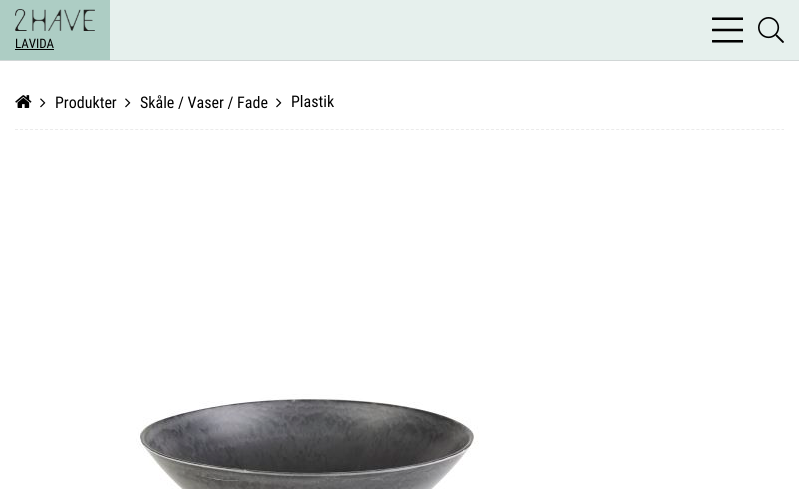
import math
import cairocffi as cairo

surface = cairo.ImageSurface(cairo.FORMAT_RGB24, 799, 489)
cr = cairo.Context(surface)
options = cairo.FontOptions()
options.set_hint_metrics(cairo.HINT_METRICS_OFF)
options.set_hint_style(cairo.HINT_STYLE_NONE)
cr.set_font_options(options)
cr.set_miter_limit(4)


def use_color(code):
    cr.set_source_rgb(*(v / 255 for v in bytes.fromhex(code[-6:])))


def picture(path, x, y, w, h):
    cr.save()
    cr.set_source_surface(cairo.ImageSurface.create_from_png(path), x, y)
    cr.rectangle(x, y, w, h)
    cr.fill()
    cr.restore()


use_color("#ffffff")
cr.paint()
use_color("#d1d6d6")
cr.rectangle(0, 60, 799, 1)
cr.fill()
use_color("#e6f0ed")
cr.rectangle(110, 0, 689, 60)
cr.fill()
use_color("#adcdc4")
cr.rectangle(0, 0, 110, 60)
cr.fill()
picture("img1.png", 15, 9, 80, 22)
cr.select_font_face("Roboto Condensed")
cr.set_font_size(13)
use_color("#000000")
cr.move_to(15, 48)
cr.show_text("LAVIDA")
cr.rectangle(15, 49, 39, 1)
cr.fill()
picture("img2.png", 712, 17, 31, 26)
picture("img3.png", 758, 17, 26, 26)
cr.new_path()
cr.move_to(15, 129.5)
cr.line_to(784, 129.5)
use_color("#ebebeb")
cr.set_line_width(1)
cr.set_dash([3, 2.01])
cr.stroke()
picture("img4.png", 15, 95, 17, 13)
picture("img5.png", 40, 98, 6, 10)
cr.set_font_size(16)
use_color("#000000")
cr.move_to(55, 108)
cr.show_text("Produkter")
picture("img5.png", 125, 98, 6, 10)
cr.move_to(140, 108)
cr.show_text("Skåle / Vaser / Fade")
picture("img5.png", 276, 98, 6, 10)
cr.move_to(291, 107)
cr.show_text("Plastik")
picture("img6.png", 136, 394, 343, 95)
surface.write_to_png("result.png")
